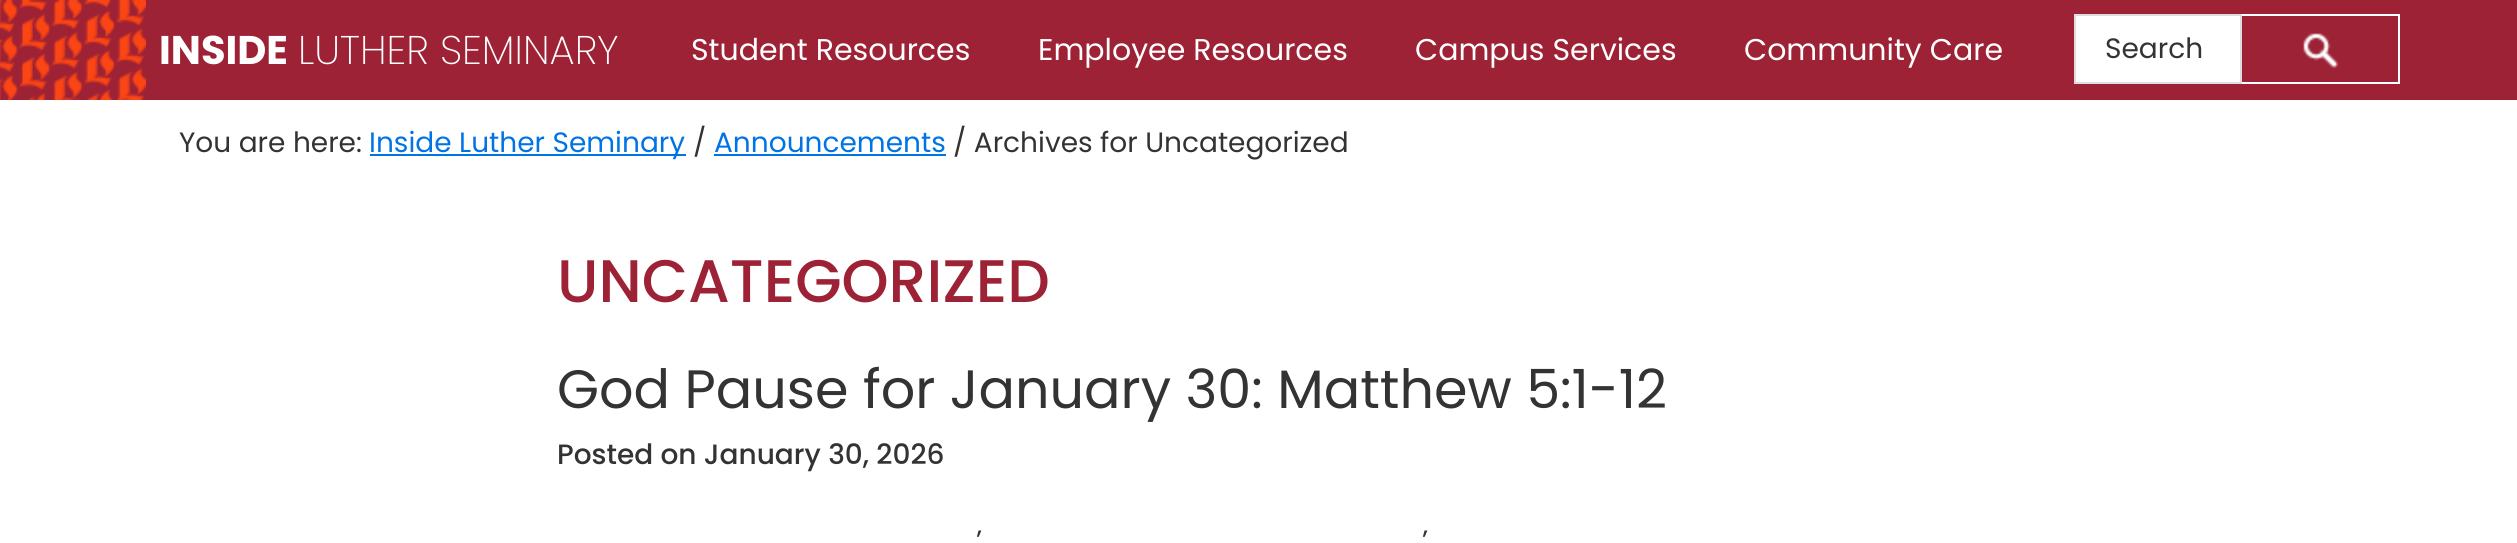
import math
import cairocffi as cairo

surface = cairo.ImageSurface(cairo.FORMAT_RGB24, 2517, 543)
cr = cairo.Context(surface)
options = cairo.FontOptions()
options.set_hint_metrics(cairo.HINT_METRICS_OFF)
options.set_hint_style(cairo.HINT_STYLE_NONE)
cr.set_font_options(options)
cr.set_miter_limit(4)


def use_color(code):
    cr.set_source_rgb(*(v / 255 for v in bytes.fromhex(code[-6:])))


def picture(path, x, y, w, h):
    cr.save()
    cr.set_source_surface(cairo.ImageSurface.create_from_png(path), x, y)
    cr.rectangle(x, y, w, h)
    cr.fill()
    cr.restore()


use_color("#ffffff")
cr.paint()
use_color("#9d2235")
cr.rectangle(0, 0, 2517, 100)
cr.fill()
picture("img1.png", 0, 0, 146, 100)
cr.select_font_face("Poppins", cairo.FONT_SLANT_NORMAL, cairo.FONT_WEIGHT_BOLD)
cr.set_font_size(40)
use_color("#ffffff")
cr.move_to(159, 64)
cr.show_text("INSIDE")
cr.select_font_face("Poppins ExtraLight")
cr.move_to(298, 64)
cr.show_text("LUTHER SEMINARY")
cr.select_font_face("Poppins")
cr.set_font_size(30)
cr.move_to(691, 60)
cr.show_text("Student Resources")
cr.move_to(1038, 60)
cr.show_text("Employee Resources")
cr.move_to(1415, 60)
cr.show_text("Campus Services")
cr.move_to(1744, 60)
cr.show_text("Community Care")
cr.rectangle(2075, 15, 166, 68)
cr.fill_preserve()
use_color("#dddddd")
cr.stroke()
cr.set_font_size(28)
use_color("#333333")
cr.move_to(2105, 58)
cr.show_text("Search")
picture("img2.png", 2303, 33, 35, 35)
use_color("#ffffff")
cr.rectangle(2242, 14, 158, 2)
cr.fill()
cr.rectangle(2398, 14, 2, 70)
cr.fill()
cr.rectangle(2242, 82, 158, 2)
cr.fill()
use_color("#333333")
cr.move_to(179, 152)
cr.show_text("You are here:")
use_color("#0073e5")
cr.rectangle(370, 154, 316, 2)
cr.fill()
cr.move_to(369, 152)
cr.show_text("Inside Luther Seminary")
use_color("#333333")
cr.move_to(693, 152)
cr.show_text("/")
use_color("#0073e5")
cr.move_to(714, 152)
cr.show_text("Announcements")
cr.rectangle(714, 154, 232, 2)
cr.fill()
use_color("#333333")
cr.move_to(953, 152)
cr.show_text("/ Archives for Uncategorized")
cr.select_font_face("Poppins Medium")
cr.set_font_size(60)
use_color("#9d2235")
cr.move_to(557, 302)
cr.show_text("UNCATEGORIZED")
cr.select_font_face("Poppins")
cr.set_font_size(54)
use_color("#333333")
cr.move_to(557, 408)
cr.show_text("God Pause for January 30: Matthew 5:1-12")
cr.select_font_face("Poppins Medium")
cr.set_font_size(28)
cr.move_to(557, 464)
cr.show_text("Posted on January 30, 2026")
cr.select_font_face("Poppins")
cr.move_to(976, 550)
cr.show_text("’")
cr.move_to(1422, 550)
cr.show_text("’")
surface.write_to_png("result.png")
